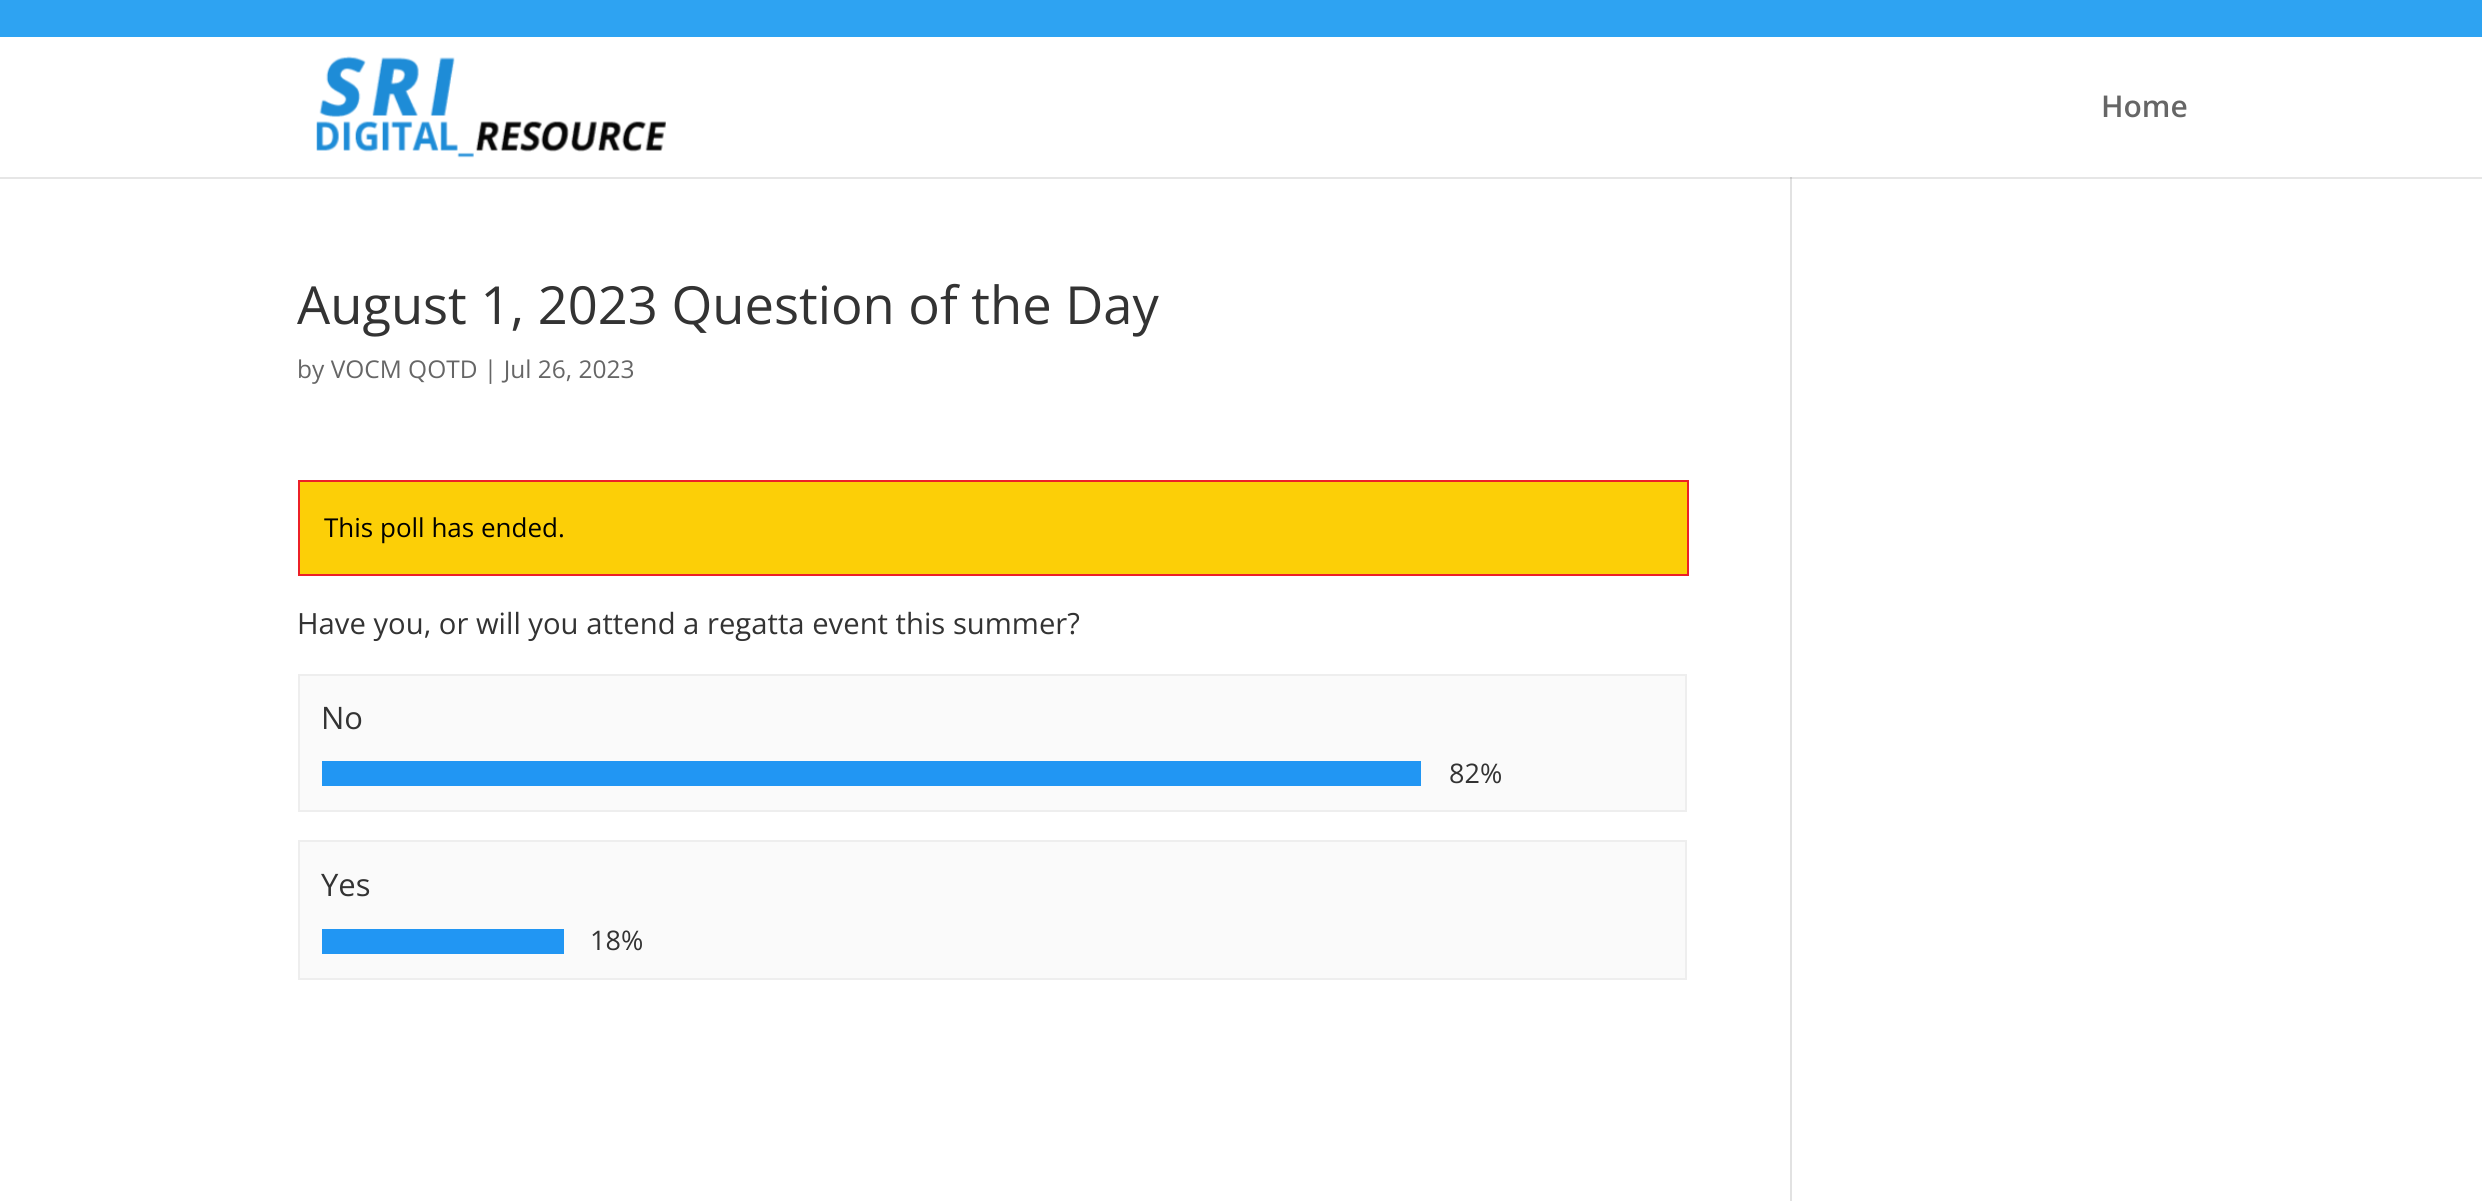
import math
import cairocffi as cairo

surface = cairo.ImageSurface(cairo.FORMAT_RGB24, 2482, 1201)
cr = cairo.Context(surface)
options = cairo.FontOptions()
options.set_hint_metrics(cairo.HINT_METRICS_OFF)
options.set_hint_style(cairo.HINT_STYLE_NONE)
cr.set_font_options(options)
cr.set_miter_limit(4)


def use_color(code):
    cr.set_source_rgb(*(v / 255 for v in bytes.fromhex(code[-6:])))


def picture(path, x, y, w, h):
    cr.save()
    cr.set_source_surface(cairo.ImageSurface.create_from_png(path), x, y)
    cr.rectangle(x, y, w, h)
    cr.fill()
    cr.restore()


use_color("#ffffff")
cr.paint()
use_color("#e6e6e6")
cr.rectangle(0, 177, 2482, 2)
cr.fill()
use_color("#2ea3f2")
cr.rectangle(0, 0, 2482, 37)
cr.fill()
picture("img1.png", 316, 56, 350, 102)
cr.select_font_face("Open Sans SemiBold")
cr.set_font_size(30)
use_color("#666666")
cr.move_to(2101, 117)
cr.show_text("Home")
cr.select_font_face("Open Sans")
cr.set_font_size(52.5)
use_color("#333333")
cr.move_to(297, 324)
cr.show_text("August 1, 2023 Question of the Day")
cr.set_font_size(24.5)
use_color("#666666")
cr.move_to(297, 378)
cr.show_text("by VOCM QOTD | Jul 26, 2023")
use_color("#fccf07")
cr.rectangle(299, 481, 1389, 94)
cr.fill_preserve()
use_color("#ec2027")
cr.stroke()
cr.set_font_size(26)
use_color("#000000")
cr.move_to(324, 537)
cr.show_text("This poll has ended.")
cr.set_font_size(29.25)
use_color("#333333")
cr.move_to(297, 634)
cr.show_text("Have you, or will you attend a regatta event this summer?")
use_color("#fafafa")
cr.rectangle(299, 675, 1387, 136)
cr.fill_preserve()
use_color("#eeeeee")
cr.stroke()
cr.set_font_size(31)
use_color("#333333")
cr.move_to(321, 729)
cr.show_text("No")
use_color("#2196f3")
cr.rectangle(322, 761, 1099, 25)
cr.fill()
cr.set_font_size(27)
use_color("#333333")
cr.move_to(1449, 783)
cr.show_text("82%")
use_color("#fafafa")
cr.rectangle(299, 841, 1387, 138)
cr.fill_preserve()
use_color("#eeeeee")
cr.stroke()
cr.set_font_size(31)
use_color("#333333")
cr.move_to(321, 896)
cr.show_text("Yes")
use_color("#2196f3")
cr.rectangle(322, 929, 242, 25)
cr.fill()
cr.set_font_size(27)
use_color("#333333")
cr.move_to(590, 950)
cr.show_text("18%")
use_color("#e2e2e2")
cr.rectangle(1790, 177, 2, 1024)
cr.fill()
use_color("#cbcbcb")
cr.rectangle(1790, 177, 2, 2)
cr.fill()
surface.write_to_png("result.png")
